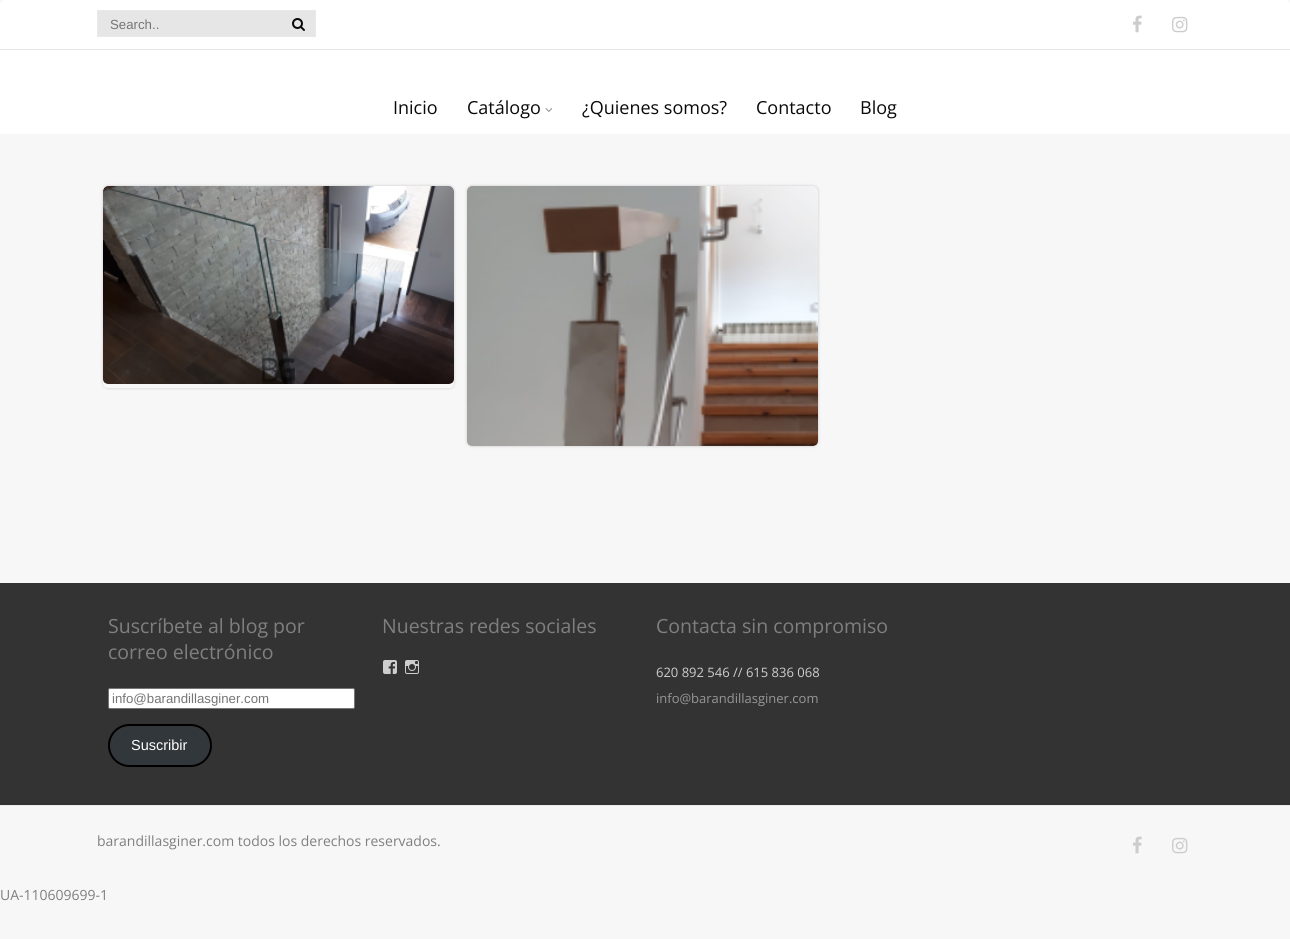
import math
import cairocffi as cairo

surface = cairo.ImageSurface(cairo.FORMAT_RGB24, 1290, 939)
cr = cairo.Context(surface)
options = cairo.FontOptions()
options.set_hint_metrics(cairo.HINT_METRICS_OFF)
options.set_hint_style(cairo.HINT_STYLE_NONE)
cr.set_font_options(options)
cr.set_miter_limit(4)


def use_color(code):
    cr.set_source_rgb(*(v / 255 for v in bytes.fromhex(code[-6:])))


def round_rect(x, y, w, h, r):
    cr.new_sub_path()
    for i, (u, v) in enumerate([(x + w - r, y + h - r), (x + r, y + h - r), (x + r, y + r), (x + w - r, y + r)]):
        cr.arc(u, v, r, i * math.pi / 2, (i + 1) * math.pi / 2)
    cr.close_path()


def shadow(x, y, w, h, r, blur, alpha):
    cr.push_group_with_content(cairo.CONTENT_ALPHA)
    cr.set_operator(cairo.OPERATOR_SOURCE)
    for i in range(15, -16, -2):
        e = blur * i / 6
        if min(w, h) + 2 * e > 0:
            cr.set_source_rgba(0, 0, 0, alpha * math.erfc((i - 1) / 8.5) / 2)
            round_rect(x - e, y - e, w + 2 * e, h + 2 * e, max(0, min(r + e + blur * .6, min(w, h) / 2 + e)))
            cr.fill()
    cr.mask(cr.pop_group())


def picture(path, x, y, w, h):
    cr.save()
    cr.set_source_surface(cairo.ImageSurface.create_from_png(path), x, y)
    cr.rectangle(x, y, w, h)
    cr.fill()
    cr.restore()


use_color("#f7f7f7")
cr.paint()
use_color("#ffffff")
cr.new_path()
cr.move_to(5, 0)
cr.line_to(1285, 0)
cr.curve_to(1288, 0, 1290, 2, 1290, 5)
cr.line_to(1290, 134)
cr.line_to(0, 134)
cr.line_to(0, 5)
cr.curve_to(0, 2, 2, 0, 5, 0)
cr.close_path()
cr.fill()
use_color("#e6e6e6")
cr.rectangle(0, 49, 1290, 1)
cr.fill()
cr.rectangle(97.5, 10.5, 218, 26)
cr.fill_preserve()
use_color("#e9e9e9")
cr.set_line_width(1)
cr.stroke()
cr.select_font_face("Liberation Sans")
cr.set_font_size(13.25)
use_color("#757575")
cr.move_to(110, 29)
cr.show_text("Search..")
picture("img1.png", 292, 18, 13, 13)
picture("img2.png", 1133, 15, 9, 18)
picture("img3.png", 1172, 16, 16, 17)
cr.select_font_face("Open Sans")
cr.set_font_size(18)
use_color("#0a0a0a")
cr.move_to(393, 114)
cr.show_text("Inicio")
cr.move_to(467, 114)
cr.show_text("Catálogo")
picture("img4.png", 545, 108, 8, 4)
cr.move_to(582, 114)
cr.show_text("¿Quienes somos?")
cr.move_to(756, 114)
cr.show_text("Contacto")
cr.move_to(860, 114)
cr.show_text("Blog")
cr.save()
cr.set_fill_rule(cairo.FILL_RULE_EVEN_ODD)
cr.new_path()
cr.move_to(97, 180)
cr.line_to(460, 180)
cr.line_to(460, 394)
cr.line_to(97, 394)
cr.close_path()
cr.move_to(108, 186)
cr.line_to(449, 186)
cr.curve_to(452, 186, 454, 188, 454, 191)
cr.line_to(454, 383)
cr.curve_to(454, 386, 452, 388, 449, 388)
cr.line_to(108, 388)
cr.curve_to(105, 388, 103, 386, 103, 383)
cr.line_to(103, 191)
cr.curve_to(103, 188, 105, 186, 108, 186)
cr.close_path()
cr.clip()
use_color("#000000")
shadow(103, 186, 351, 202, 5, 1.5, 0.2)
cr.restore()
picture("img5.png", 103, 186, 351, 198)
use_color("#000000")
shadow(467, 186, 351, 260, 5, 1.5, 0.2)
picture("img6.png", 467, 186, 351, 260)
use_color("#333333")
cr.rectangle(0, 583, 1290, 222)
cr.fill()
cr.set_font_size(19.5)
use_color("#7f7f7f")
cr.move_to(108, 633)
cr.show_text("Suscríbete al blog por")
cr.move_to(108, 659)
cr.show_text("correo electrónico")
use_color("#ffffff")
round_rect(108.5, 688.5, 246, 20, 1.5)
cr.fill_preserve()
use_color("#767676")
cr.stroke()
cr.select_font_face("Liberation Sans")
cr.set_font_size(13.25)
use_color("#757575")
cr.move_to(112, 703)
cr.show_text("info@barandillasginer.com")
use_color("#32373c")
round_rect(109, 725, 102, 41, 20.5)
cr.fill_preserve()
use_color("#000000")
cr.set_line_width(2)
cr.stroke()
cr.set_font_size(14.5)
use_color("#ffffff")
cr.move_to(131, 750)
cr.show_text("Suscribir")
cr.select_font_face("Open Sans")
cr.set_font_size(19.5)
use_color("#7f7f7f")
cr.move_to(382, 633)
cr.show_text("Nuestras redes sociales")
picture("img7.png", 383, 660, 14, 14)
picture("img8.png", 405, 660, 14, 14)
cr.move_to(656, 633)
cr.show_text("Contacta sin compromiso")
cr.set_font_size(13)
use_color("#cecece")
cr.move_to(656, 677)
cr.show_text("620 892 546 // 615 836 068")
use_color("#979797")
cr.move_to(656, 703)
cr.show_text("info@barandillasginer.com")
use_color("#ebebeb")
cr.rectangle(0, 805, 1290, 1)
cr.fill()
cr.set_font_size(14)
use_color("#7f7f7f")
cr.move_to(97, 846)
cr.show_text("barandillasginer.com todos los derechos reservados.")
picture("img9.png", 1133, 836, 9, 18)
picture("img10.png", 1172, 837, 16, 17)
cr.move_to(0, 900)
cr.show_text("UA-110609699-1")
surface.write_to_png("result.png")
